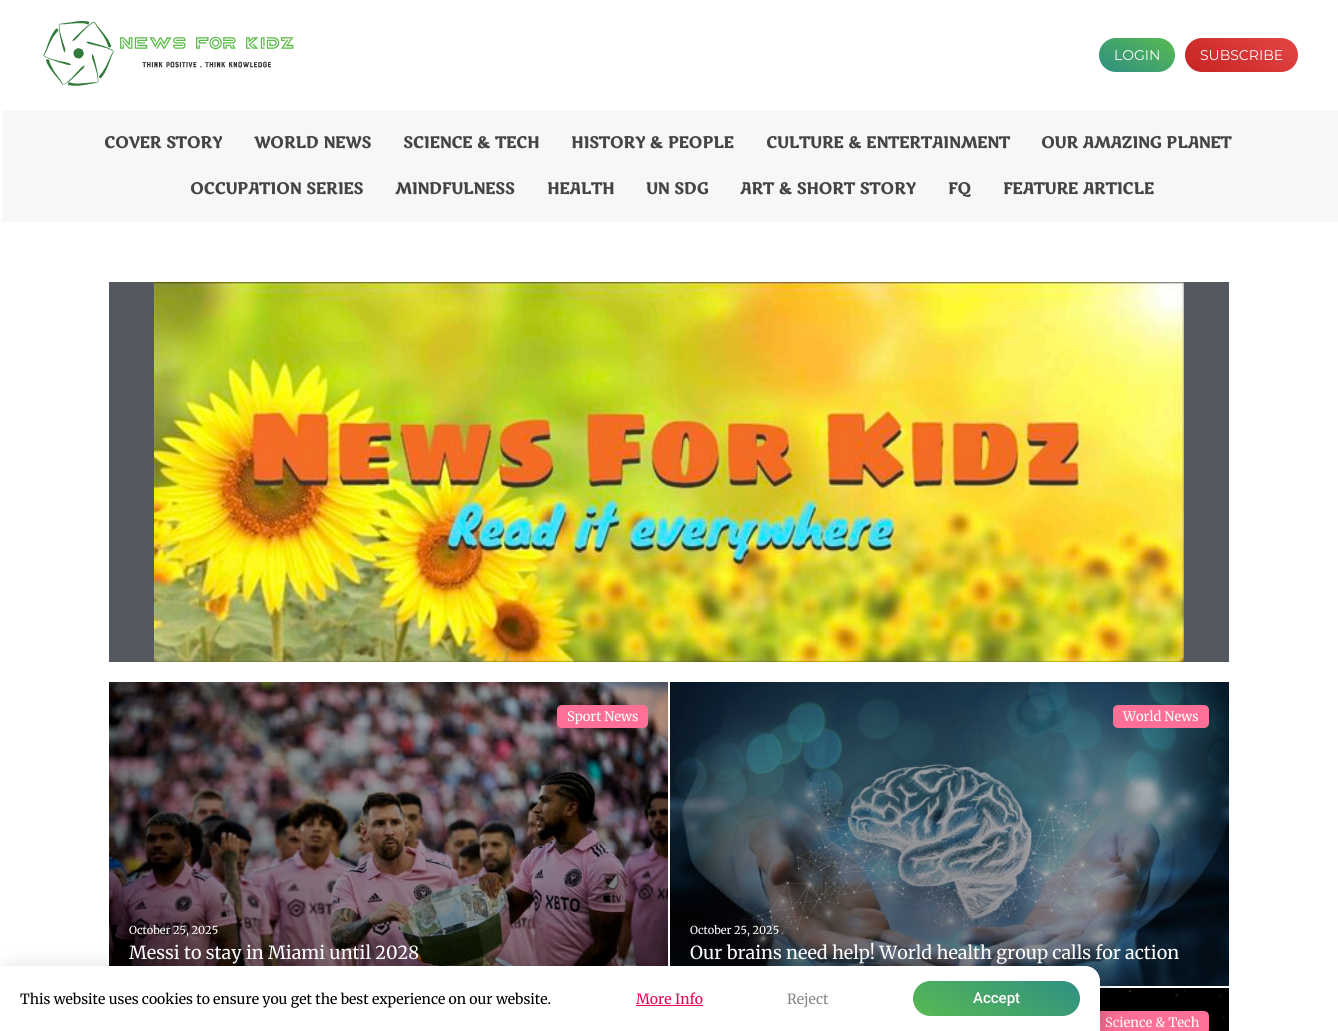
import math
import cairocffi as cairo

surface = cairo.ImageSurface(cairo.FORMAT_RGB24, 1338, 1031)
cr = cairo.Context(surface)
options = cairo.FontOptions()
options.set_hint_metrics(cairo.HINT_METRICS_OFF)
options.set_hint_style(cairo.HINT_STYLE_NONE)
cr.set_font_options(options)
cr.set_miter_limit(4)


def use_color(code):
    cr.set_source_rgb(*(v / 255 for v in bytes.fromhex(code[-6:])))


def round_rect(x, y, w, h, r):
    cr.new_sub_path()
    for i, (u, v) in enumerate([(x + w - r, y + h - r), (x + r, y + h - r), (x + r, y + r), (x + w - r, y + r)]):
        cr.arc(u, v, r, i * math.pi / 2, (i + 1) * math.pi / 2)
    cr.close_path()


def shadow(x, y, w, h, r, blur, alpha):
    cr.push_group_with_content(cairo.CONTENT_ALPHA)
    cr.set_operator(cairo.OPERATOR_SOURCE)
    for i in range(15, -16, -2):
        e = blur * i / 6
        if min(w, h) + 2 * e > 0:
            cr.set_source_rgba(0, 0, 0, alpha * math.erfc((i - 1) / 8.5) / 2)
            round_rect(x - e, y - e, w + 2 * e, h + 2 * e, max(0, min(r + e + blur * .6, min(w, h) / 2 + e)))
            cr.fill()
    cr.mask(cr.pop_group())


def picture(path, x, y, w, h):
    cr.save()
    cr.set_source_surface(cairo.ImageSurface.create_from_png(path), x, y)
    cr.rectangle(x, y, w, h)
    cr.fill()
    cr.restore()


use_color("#ffffff")
cr.paint()
picture("img1.png", 43, 21, 251, 65)
gradient = cairo.LinearGradient(1154, 26, 1120, 84)
gradient.add_color_stop_rgba(0, 0.345, 0.729, 0.322, 1)
gradient.add_color_stop_rgba(1, 0.184, 0.561, 0.514, 1)
cr.set_source(gradient)
round_rect(1099, 38, 76, 34, 17)
cr.fill()
cr.select_font_face("Montserrat")
cr.set_font_size(14)
use_color("#ffffff")
cr.move_to(1114, 60)
cr.show_text("LOGIN")
gradient = cairo.LinearGradient(1263, 18, 1220, 92)
gradient.add_color_stop_rgba(0, 0.89, 0.275, 0.275, 1)
gradient.add_color_stop_rgba(1, 0.784, 0.137, 0.137, 1)
cr.set_source(gradient)
round_rect(1185, 38, 113, 34, 17)
cr.fill()
use_color("#ffffff")
cr.move_to(1200, 60)
cr.show_text("SUBSCRIBE")
use_color("#f7f7f7")
cr.rectangle(2, 110, 1336, 112)
cr.fill()
cr.select_font_face("Marko One", cairo.FONT_SLANT_NORMAL, cairo.FONT_WEIGHT_BOLD)
cr.set_font_size(16)
use_color("#444444")
cr.move_to(104, 148)
cr.show_text("COVER STORY")
cr.move_to(254, 148)
cr.show_text("WORLD NEWS")
cr.move_to(403, 148)
cr.show_text("SCIENCE & TECH")
cr.move_to(571, 148)
cr.show_text("HISTORY & PEOPLE")
cr.move_to(766, 148)
cr.show_text("CULTURE & ENTERTAINMENT")
cr.move_to(1041, 148)
cr.show_text("OUR AMAZING PLANET")
cr.move_to(190, 194)
cr.show_text("OCCUPATION SERIES")
cr.move_to(395, 194)
cr.show_text("MINDFULNESS")
cr.move_to(547, 194)
cr.show_text("HEALTH")
cr.move_to(646, 194)
cr.show_text("UN SDG")
cr.move_to(740, 194)
cr.show_text("ART & SHORT STORY")
cr.move_to(948, 194)
cr.show_text("FQ")
cr.move_to(1003, 194)
cr.show_text("FEATURE ARTICLE")
use_color("#54595f")
cr.rectangle(109, 282, 1120, 380)
cr.fill()
picture("img2.png", 154, 282, 1030, 380)
picture("img3.png", 109, 682, 559, 284)
use_color("#ff6f96")
round_rect(557, 705, 91, 23, 5)
cr.fill()
cr.select_font_face("Merriweather")
cr.set_font_size(13)
use_color("#ffffff")
cr.move_to(567, 721)
cr.show_text("Sport News")
cr.set_font_size(11)
cr.move_to(129, 934)
cr.show_text("October 25, 2025")
cr.set_font_size(18)
cr.move_to(129, 959)
cr.show_text("Messi to stay in Miami until 2028")
picture("img4.png", 670, 682, 559, 304)
use_color("#ff6f96")
round_rect(1113, 705, 96, 23, 5)
cr.fill()
cr.set_font_size(13)
use_color("#ffffff")
cr.move_to(1123, 721)
cr.show_text("World News")
cr.set_font_size(11)
cr.move_to(690, 934)
cr.show_text("October 25, 2025")
cr.set_font_size(18)
cr.move_to(690, 959)
cr.show_text("Our brains need help! World health group calls for action")
picture("img5.png", 1100, 988, 129, 43)
use_color("#ff6f96")
round_rect(1095, 1011, 114, 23, 5)
cr.fill()
cr.set_font_size(13)
use_color("#ffffff")
cr.move_to(1105, 1027)
cr.show_text("Science & Tech")
use_color("#000000")
shadow(-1, 971, 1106, 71, 18, 11.5, 0.2)
use_color("#ffffff")
cr.new_path()
cr.move_to(0, 966)
cr.line_to(1085, 966)
cr.curve_to(1093.5, 966, 1100, 972.5, 1100, 981)
cr.line_to(1100, 1031)
cr.line_to(0, 1031)
cr.close_path()
cr.fill()
cr.set_font_size(14)
use_color("#000000")
cr.move_to(20, 1004)
cr.show_text("This website uses cookies to ensure you get the best experience on our website.")
use_color("#ef0057")
cr.move_to(636, 1004)
cr.show_text("More Info")
cr.rectangle(636, 1005, 67, 1)
cr.fill()
use_color("#878787")
cr.move_to(787, 1004)
cr.show_text("Reject")
gradient = cairo.LinearGradient(1025, 949, 968, 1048)
gradient.add_color_stop_rgba(0, 0.184, 0.561, 0.514, 1)
gradient.add_color_stop_rgba(1, 0.345, 0.729, 0.322, 1)
cr.set_source(gradient)
round_rect(913, 981, 167, 35, 17.5)
cr.fill()
cr.select_font_face("Roboto Medium")
cr.set_font_size(15)
use_color("#ffffff")
cr.move_to(973, 1003)
cr.show_text("Accept")
surface.write_to_png("result.png")
